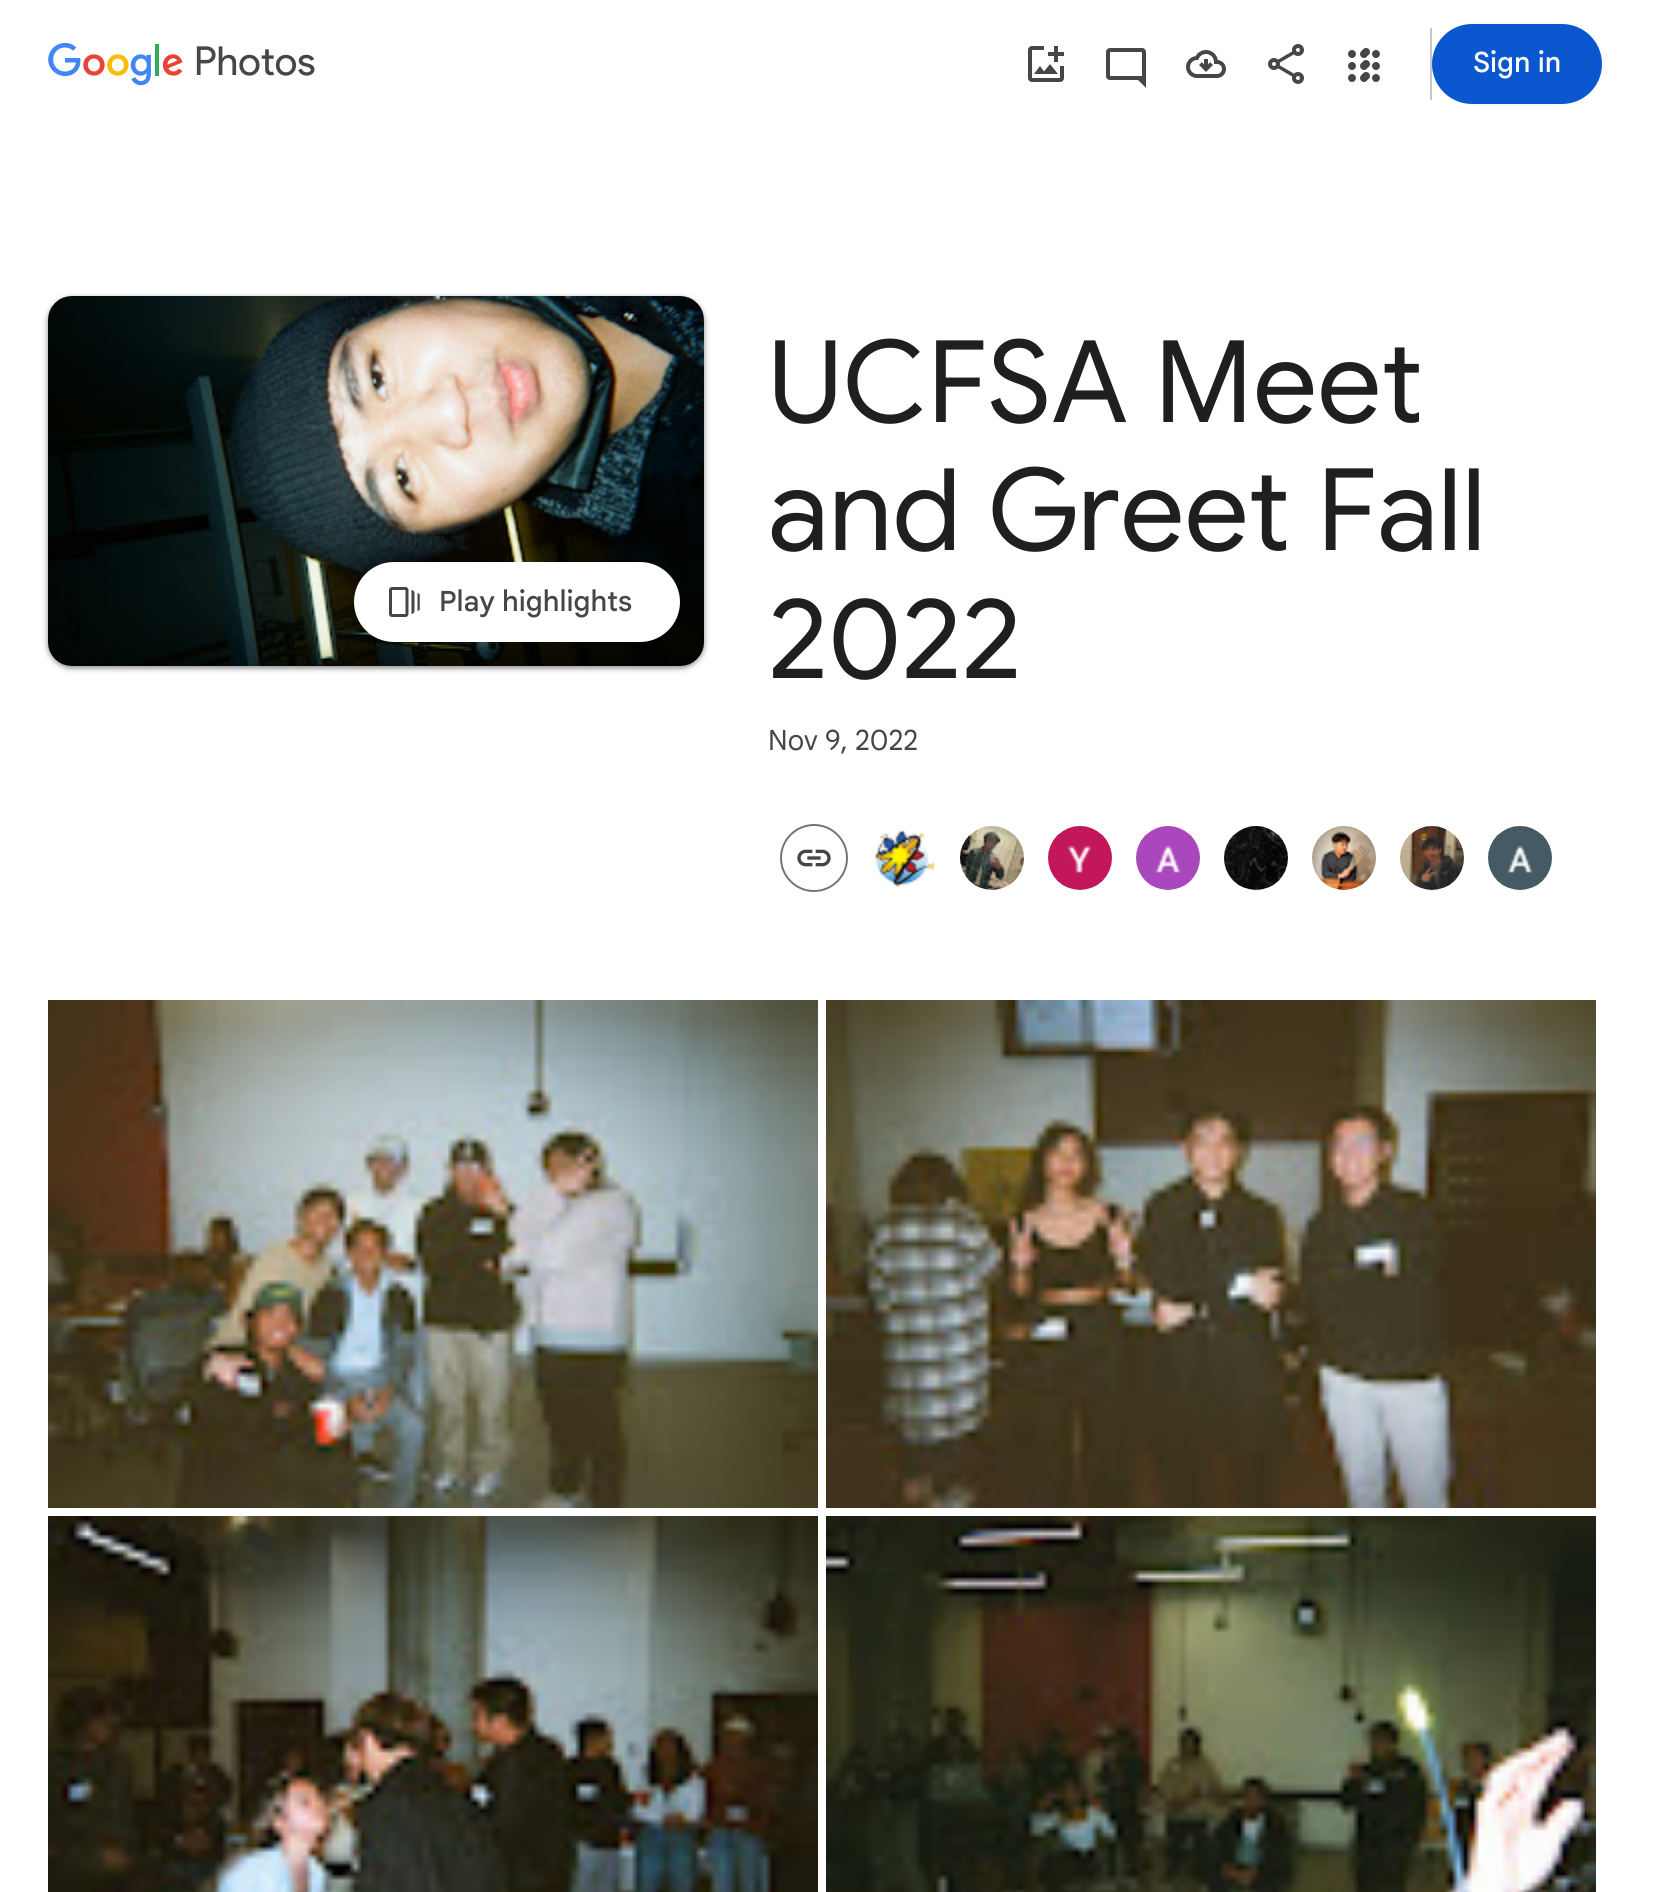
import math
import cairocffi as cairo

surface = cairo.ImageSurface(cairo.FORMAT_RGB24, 1674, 1892)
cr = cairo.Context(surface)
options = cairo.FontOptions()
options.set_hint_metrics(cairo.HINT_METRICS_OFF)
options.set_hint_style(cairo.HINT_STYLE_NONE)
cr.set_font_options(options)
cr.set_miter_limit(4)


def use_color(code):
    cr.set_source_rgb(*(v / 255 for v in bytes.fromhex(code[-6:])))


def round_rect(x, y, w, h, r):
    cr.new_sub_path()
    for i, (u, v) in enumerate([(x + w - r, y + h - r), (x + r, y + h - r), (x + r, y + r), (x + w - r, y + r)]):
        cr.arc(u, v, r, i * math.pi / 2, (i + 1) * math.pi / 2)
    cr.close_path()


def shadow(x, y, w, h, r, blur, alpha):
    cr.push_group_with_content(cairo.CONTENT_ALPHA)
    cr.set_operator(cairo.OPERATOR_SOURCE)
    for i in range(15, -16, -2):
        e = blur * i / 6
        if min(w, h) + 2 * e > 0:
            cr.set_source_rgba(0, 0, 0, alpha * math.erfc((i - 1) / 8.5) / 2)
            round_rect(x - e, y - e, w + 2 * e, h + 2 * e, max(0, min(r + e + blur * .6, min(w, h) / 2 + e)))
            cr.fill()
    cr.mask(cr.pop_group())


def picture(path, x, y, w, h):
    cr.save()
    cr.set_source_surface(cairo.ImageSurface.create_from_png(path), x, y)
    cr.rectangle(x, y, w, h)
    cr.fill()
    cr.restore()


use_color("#ffffff")
cr.paint()
picture("img1.png", 48, 42, 135, 44)
cr.select_font_face("Product Sans")
cr.set_font_size(40)
use_color("#444746")
cr.move_to(194, 75)
cr.show_text("Photos")
picture("img2.png", 1028, 46, 36, 36)
picture("img3.png", 1106, 48, 40, 40)
picture("img4.png", 1186, 50, 40, 28)
picture("img5.png", 1268, 44, 36, 40)
picture("img6.png", 1362, 48, 8, 32)
use_color("#c4c7c5")
cr.rectangle(1430, 28, 2, 72)
cr.fill()
use_color("#000000")
shadow(46, 296, 660, 374, 26, 3, 0.15)
shadow(48, 298, 656, 370, 24, 2, 0.3)
picture("img7.png", 48, 296, 656, 370)
use_color("#ffffff")
round_rect(354, 562, 326, 80, 40)
cr.fill()
picture("img8.png", 389, 587, 31, 30)
cr.select_font_face("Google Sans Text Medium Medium")
cr.set_font_size(28)
use_color("#444746")
cr.move_to(439, 611)
cr.show_text("Play highlights")
cr.select_font_face("Google Sans")
cr.set_font_size(114)
use_color("#1f1f1f")
cr.move_to(768, 422)
cr.show_text("UCFSA Meet")
cr.move_to(768, 550)
cr.show_text("and Greet Fall")
cr.move_to(768, 678)
cr.show_text("2022")
cr.select_font_face("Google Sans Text")
cr.set_font_size(28)
use_color("#444746")
cr.move_to(768, 750)
cr.show_text("Nov 9, 2022")
cr.new_path()
cr.arc(814, 858, 33, 0, 2 * math.pi)
use_color("#747775")
cr.stroke()
picture("img9.png", 797, 849, 34, 18)
picture("img10.png", 875, 829, 61, 58)
picture("img11.png", 960, 826, 64, 64)
picture("img12.png", 1048, 826, 64, 64)
picture("img13.png", 1136, 826, 64, 64)
picture("img14.png", 1224, 826, 64, 64)
picture("img15.png", 1312, 826, 64, 64)
picture("img16.png", 1400, 826, 64, 64)
picture("img17.png", 1488, 826, 64, 64)
picture("img18.png", 48, 1000, 770, 508)
picture("img19.png", 826, 1000, 770, 508)
picture("img20.png", 48, 1516, 770, 376)
picture("img21.png", 826, 1516, 770, 376)
picture("img22.png", 1348, 50, 32, 32)
use_color("#0b57d0")
round_rect(1432, 24, 170, 80, 40)
cr.fill()
cr.select_font_face("Google Sans Text Medium Medium")
use_color("#ffffff")
cr.move_to(1473, 72)
cr.show_text("Sign in")
surface.write_to_png("result.png")
